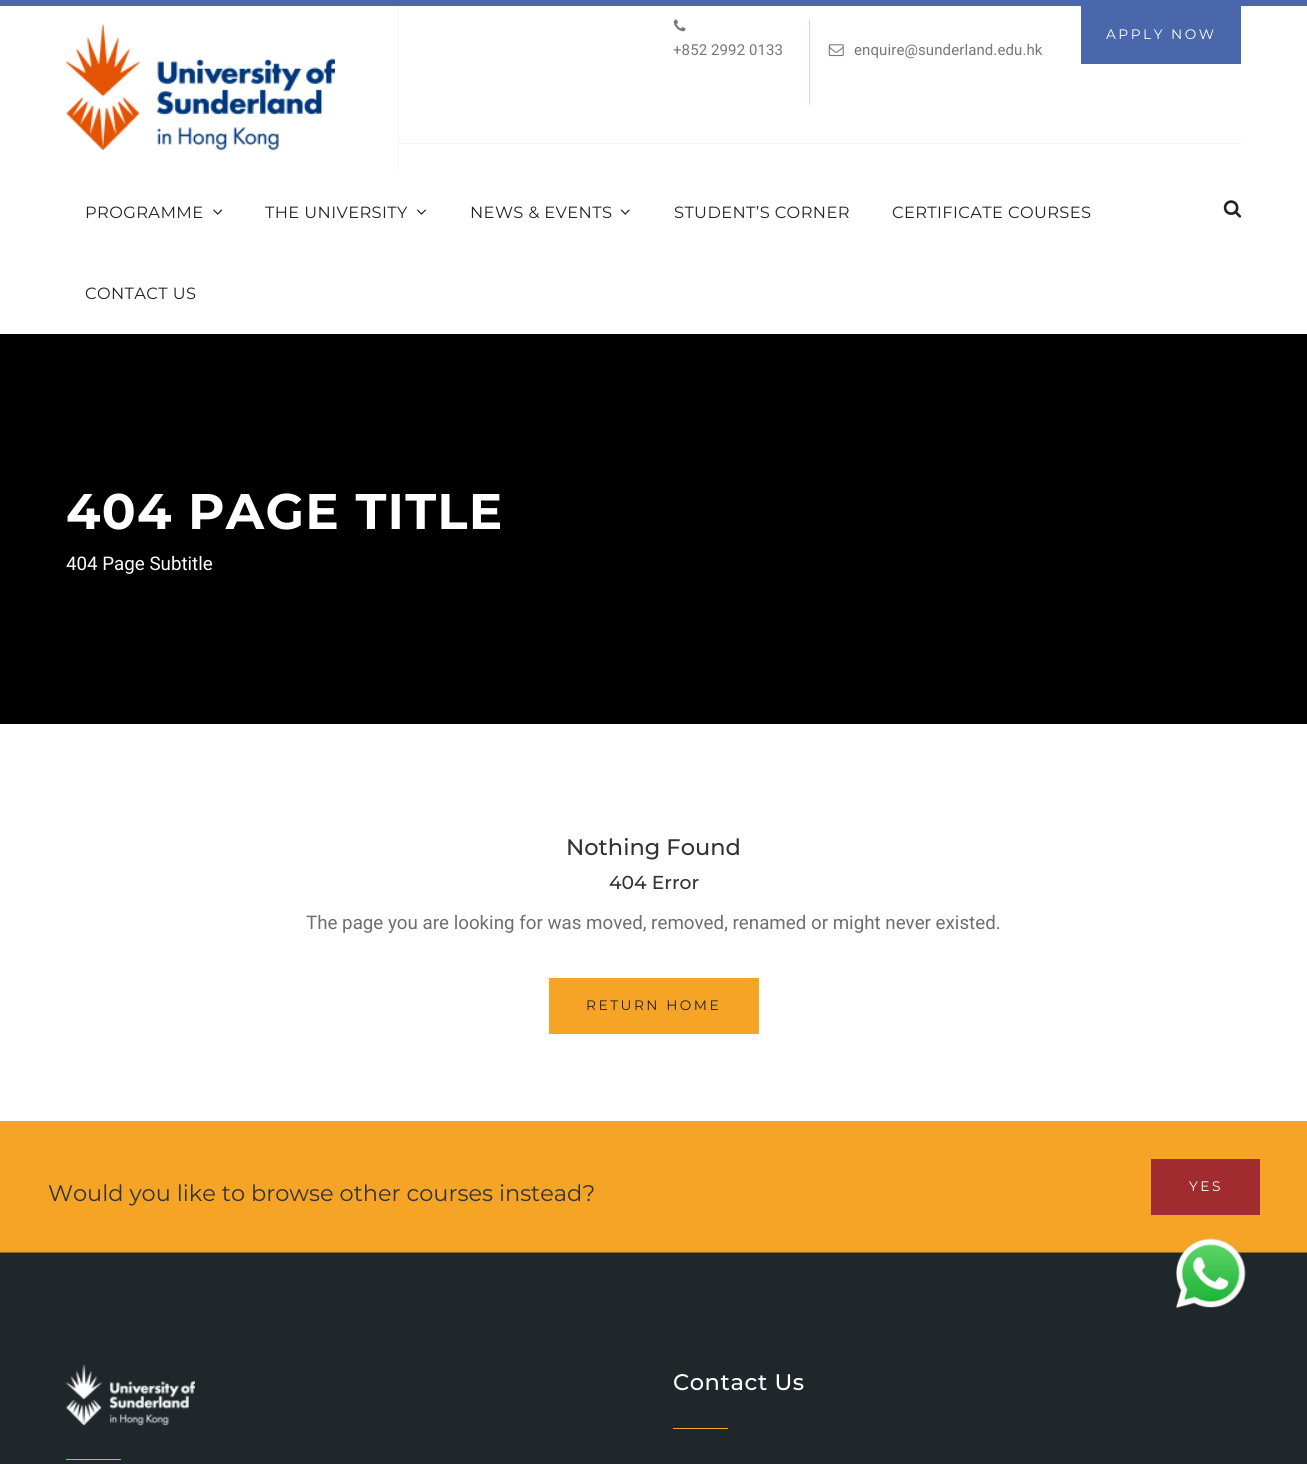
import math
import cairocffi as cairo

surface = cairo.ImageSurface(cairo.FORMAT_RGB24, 1307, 1464)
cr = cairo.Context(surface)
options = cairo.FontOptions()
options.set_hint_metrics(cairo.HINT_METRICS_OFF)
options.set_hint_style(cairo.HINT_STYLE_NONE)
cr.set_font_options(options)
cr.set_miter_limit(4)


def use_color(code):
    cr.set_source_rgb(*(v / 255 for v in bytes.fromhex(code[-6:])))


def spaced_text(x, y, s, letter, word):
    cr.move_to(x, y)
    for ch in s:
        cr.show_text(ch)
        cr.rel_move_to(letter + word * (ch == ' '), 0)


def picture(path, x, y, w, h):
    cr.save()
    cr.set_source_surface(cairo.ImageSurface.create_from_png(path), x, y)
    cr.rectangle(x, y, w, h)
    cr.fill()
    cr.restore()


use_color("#ffffff")
cr.paint()
use_color("#4967aa")
cr.rectangle(0, 0, 1307, 6)
cr.fill()
use_color("#f2f5f6")
cr.rectangle(398, 6, 1, 164)
cr.fill()
picture("img1.png", 66, 24, 269, 127)
cr.rectangle(399, 143, 842, 1)
cr.fill()
use_color("#4967aa")
cr.rectangle(1081, 6, 160, 58)
cr.fill()
cr.select_font_face("Montserrat")
cr.set_font_size(13.75)
use_color("#ffffff")
spaced_text(1106, 39, "APPLY NOW", 2.5, 0)
use_color("#d4dee1")
cr.rectangle(809, 19, 1, 86)
cr.fill()
picture("img2.png", 673, 19, 13, 13)
cr.select_font_face("Roboto")
cr.set_font_size(15)
use_color("#777777")
spaced_text(673, 55, "+852 2992 0133", 0.1, 0)
picture("img3.png", 828, 44, 16, 13)
spaced_text(854, 55, "enquire@sunderland.edu.hk", 0.1, 0)
cr.select_font_face("Montserrat")
cr.set_font_size(16.25)
use_color("#222222")
spaced_text(85, 218, "PROGRAMME", 0.4, 0)
picture("img4.png", 213, 209, 10, 6)
spaced_text(265, 218, "THE UNIVERSITY", 0.4, 0)
picture("img5.png", 417, 209, 9, 6)
spaced_text(470, 218, "NEWS & EVENTS", 0.4, 0)
picture("img6.png", 620, 209, 10, 6)
spaced_text(674, 218, "STUDENT’S CORNER", 0.4, 0)
spaced_text(892, 218, "CERTIFICATE COURSES", 0.4, 0)
spaced_text(85, 299, "CONTACT US", 0.4, 0)
picture("img7.png", 1223, 200, 19, 18)
use_color("#000000")
cr.rectangle(0, 334, 1307, 390)
cr.fill()
cr.select_font_face("Montserrat", cairo.FONT_SLANT_NORMAL, cairo.FONT_WEIGHT_BOLD)
cr.set_font_size(50)
use_color("#ffffff")
spaced_text(66, 529, "404 PAGE TITLE", 1.25, 0)
cr.select_font_face("Roboto")
cr.set_font_size(18.75)
cr.move_to(66, 570)
cr.show_text("404 Page Subtitle")
cr.select_font_face("Montserrat Medium")
cr.set_font_size(22.5)
use_color("#333333")
cr.move_to(566, 855)
cr.show_text("Nothing Found")
cr.set_font_size(18.75)
cr.move_to(609, 889)
cr.show_text("404 Error")
cr.select_font_face("Roboto")
use_color("#6e6e6e")
cr.move_to(306, 929)
cr.show_text("The page you are looking for was moved, removed, renamed or might never existed.")
use_color("#f5a425")
cr.rectangle(549, 978, 210, 56)
cr.fill()
cr.select_font_face("Montserrat")
cr.set_font_size(13.75)
use_color("#222222")
spaced_text(586, 1010, "RETURN HOME", 2.5, 0)
use_color("#f5a425")
cr.rectangle(0, 1121, 1307, 131)
cr.fill()
cr.set_font_size(22.5)
use_color("#333333")
cr.move_to(48, 1201)
cr.show_text("Would you like to browse other courses instead?")
use_color("#a12c2f")
cr.rectangle(1151, 1159, 109, 56)
cr.fill()
cr.set_font_size(13.75)
use_color("#ffffff")
spaced_text(1189, 1191, "YES", 2.5, 0)
use_color("#1f272b")
cr.rectangle(0, 1253, 1307, 211)
cr.fill()
use_color("#8a6628")
cr.rectangle(0, 1252, 1307, 1)
cr.fill()
picture("img8.png", 1175, 1238, 71, 71)
picture("img9.png", 66, 1365, 129, 61)
use_color("#f5a425")
cr.rectangle(66, 1459, 55, 1)
cr.fill()
cr.select_font_face("Montserrat Medium")
cr.set_font_size(22.5)
use_color("#ffffff")
spaced_text(673, 1390, "Contact Us", 0.6, 0)
use_color("#f5a425")
cr.rectangle(673, 1428, 55, 1)
cr.fill()
surface.write_to_png("result.png")
